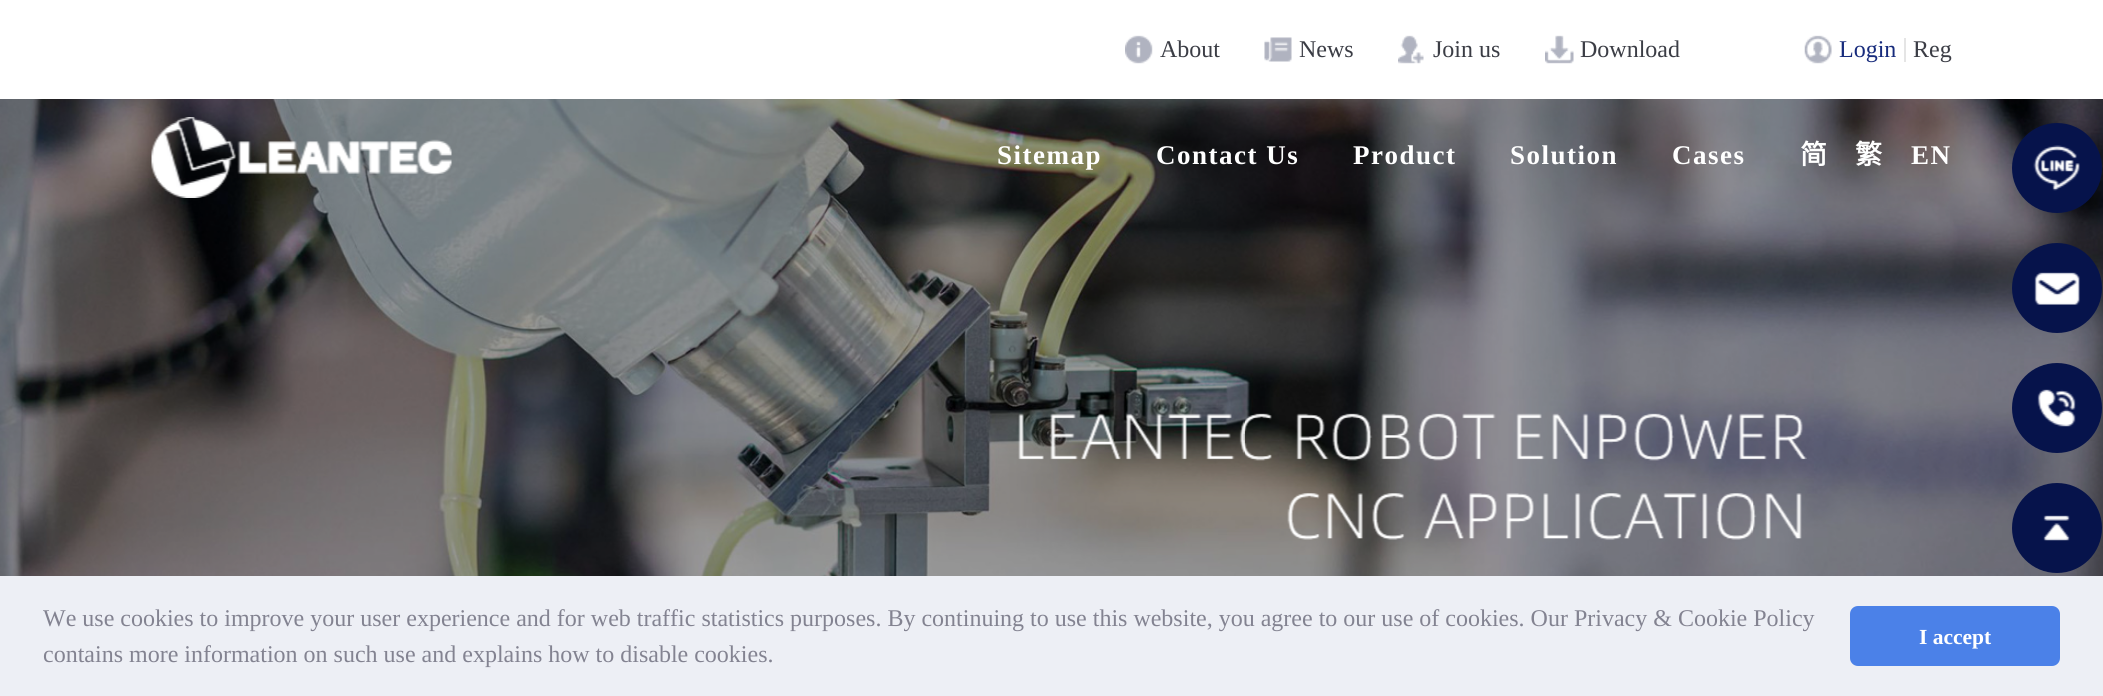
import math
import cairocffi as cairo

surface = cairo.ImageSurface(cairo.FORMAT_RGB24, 2103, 696)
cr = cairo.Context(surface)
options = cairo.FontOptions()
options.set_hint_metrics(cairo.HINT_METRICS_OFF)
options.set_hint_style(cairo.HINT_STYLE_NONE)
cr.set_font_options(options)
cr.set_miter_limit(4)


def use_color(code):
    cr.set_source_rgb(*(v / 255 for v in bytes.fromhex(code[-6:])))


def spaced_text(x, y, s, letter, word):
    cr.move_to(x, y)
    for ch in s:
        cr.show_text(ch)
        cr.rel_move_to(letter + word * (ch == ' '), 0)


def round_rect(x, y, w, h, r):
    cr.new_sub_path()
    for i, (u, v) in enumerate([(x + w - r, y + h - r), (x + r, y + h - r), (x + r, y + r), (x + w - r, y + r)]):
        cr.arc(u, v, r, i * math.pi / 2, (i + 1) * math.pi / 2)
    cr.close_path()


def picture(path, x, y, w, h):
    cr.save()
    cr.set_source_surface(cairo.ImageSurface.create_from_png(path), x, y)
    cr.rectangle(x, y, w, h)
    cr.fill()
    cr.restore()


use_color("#000000")
cr.paint()
use_color("#ffffff")
cr.rectangle(0, 0, 2103, 99)
cr.fill()
picture("img1.png", 1125, 35, 28, 29)
cr.select_font_face("Liberation Serif")
cr.set_font_size(24)
use_color("#3b3d45")
cr.move_to(1160, 57)
cr.show_text("About")
picture("img2.png", 1264, 37, 28, 25)
cr.move_to(1299, 57)
cr.show_text("News")
picture("img3.png", 1398, 35, 26, 29)
cr.move_to(1433, 57)
cr.show_text("Join us")
picture("img4.png", 1545, 35, 29, 29)
cr.move_to(1580, 57)
cr.show_text("Download")
picture("img5.png", 1804, 35, 28, 29)
use_color("#172b7c")
cr.move_to(1839, 57)
cr.show_text("Login")
use_color("#e5e5e5")
cr.rectangle(1904, 38, 2, 24)
cr.fill()
use_color("#3b3d45")
cr.move_to(1913, 57)
cr.show_text("Reg")
picture("img6.png", 0, 99, 2103, 477)
picture("img7.png", 1018, 413, 789, 127)
picture("img8.png", 151, 117, 301, 81)
cr.select_font_face("Liberation Serif", cairo.FONT_SLANT_NORMAL, cairo.FONT_WEIGHT_BOLD)
cr.set_font_size(27)
use_color("#ffffff")
spaced_text(997, 164, "Sitemap", 1.5, 0)
spaced_text(1156, 164, "Contact Us", 1.5, 0)
spaced_text(1353, 164, "Product", 1.5, 0)
spaced_text(1510, 164, "Solution", 1.5, 0)
spaced_text(1672, 164, "Cases", 1.5, 0)
cr.select_font_face("Noto Sans CJK SC", cairo.FONT_SLANT_NORMAL, cairo.FONT_WEIGHT_BOLD)
spaced_text(1800, 164, "简", 1.5, 0)
spaced_text(1855, 164, "繁", 1.5, 0)
cr.select_font_face("Liberation Serif", cairo.FONT_SLANT_NORMAL, cairo.FONT_WEIGHT_BOLD)
spaced_text(1911, 164, "EN", 1.5, 0)
use_color("#06134b")
cr.new_path()
cr.arc(2057, 168, 45, 0, 2 * math.pi)
cr.fill()
picture("img9.png", 2033, 145, 47, 46)
cr.arc(2057, 288, 45, 0, 2 * math.pi)
cr.fill()
picture("img10.png", 2034, 272, 46, 33)
cr.arc(2057, 408, 45, 0, 2 * math.pi)
cr.fill()
picture("img11.png", 2037, 389, 39, 38)
cr.arc(2057, 528, 45, 0, 2 * math.pi)
cr.fill()
picture("img12.png", 2043, 515, 27, 26)
use_color("#edeff5")
cr.rectangle(0, 576, 2103, 120)
cr.fill()
cr.select_font_face("Liberation Serif")
cr.set_font_size(24)
use_color("#838391")
cr.move_to(43, 626)
cr.show_text("We use cookies to improve your user experience and for web traffic statistics purposes. By continuing to use this website, you agree to our use of cookies. Our Privacy & Cookie Policy")
cr.move_to(43, 662)
cr.show_text("contains more information on such use and explains how to disable cookies.")
use_color("#4b81e8")
round_rect(1850, 606, 210, 60, 8)
cr.fill()
cr.select_font_face("Liberation Serif", cairo.FONT_SLANT_NORMAL, cairo.FONT_WEIGHT_BOLD)
cr.set_font_size(21.5)
use_color("#ffffff")
cr.move_to(1919, 644)
cr.show_text("I accept")
surface.write_to_png("result.png")
